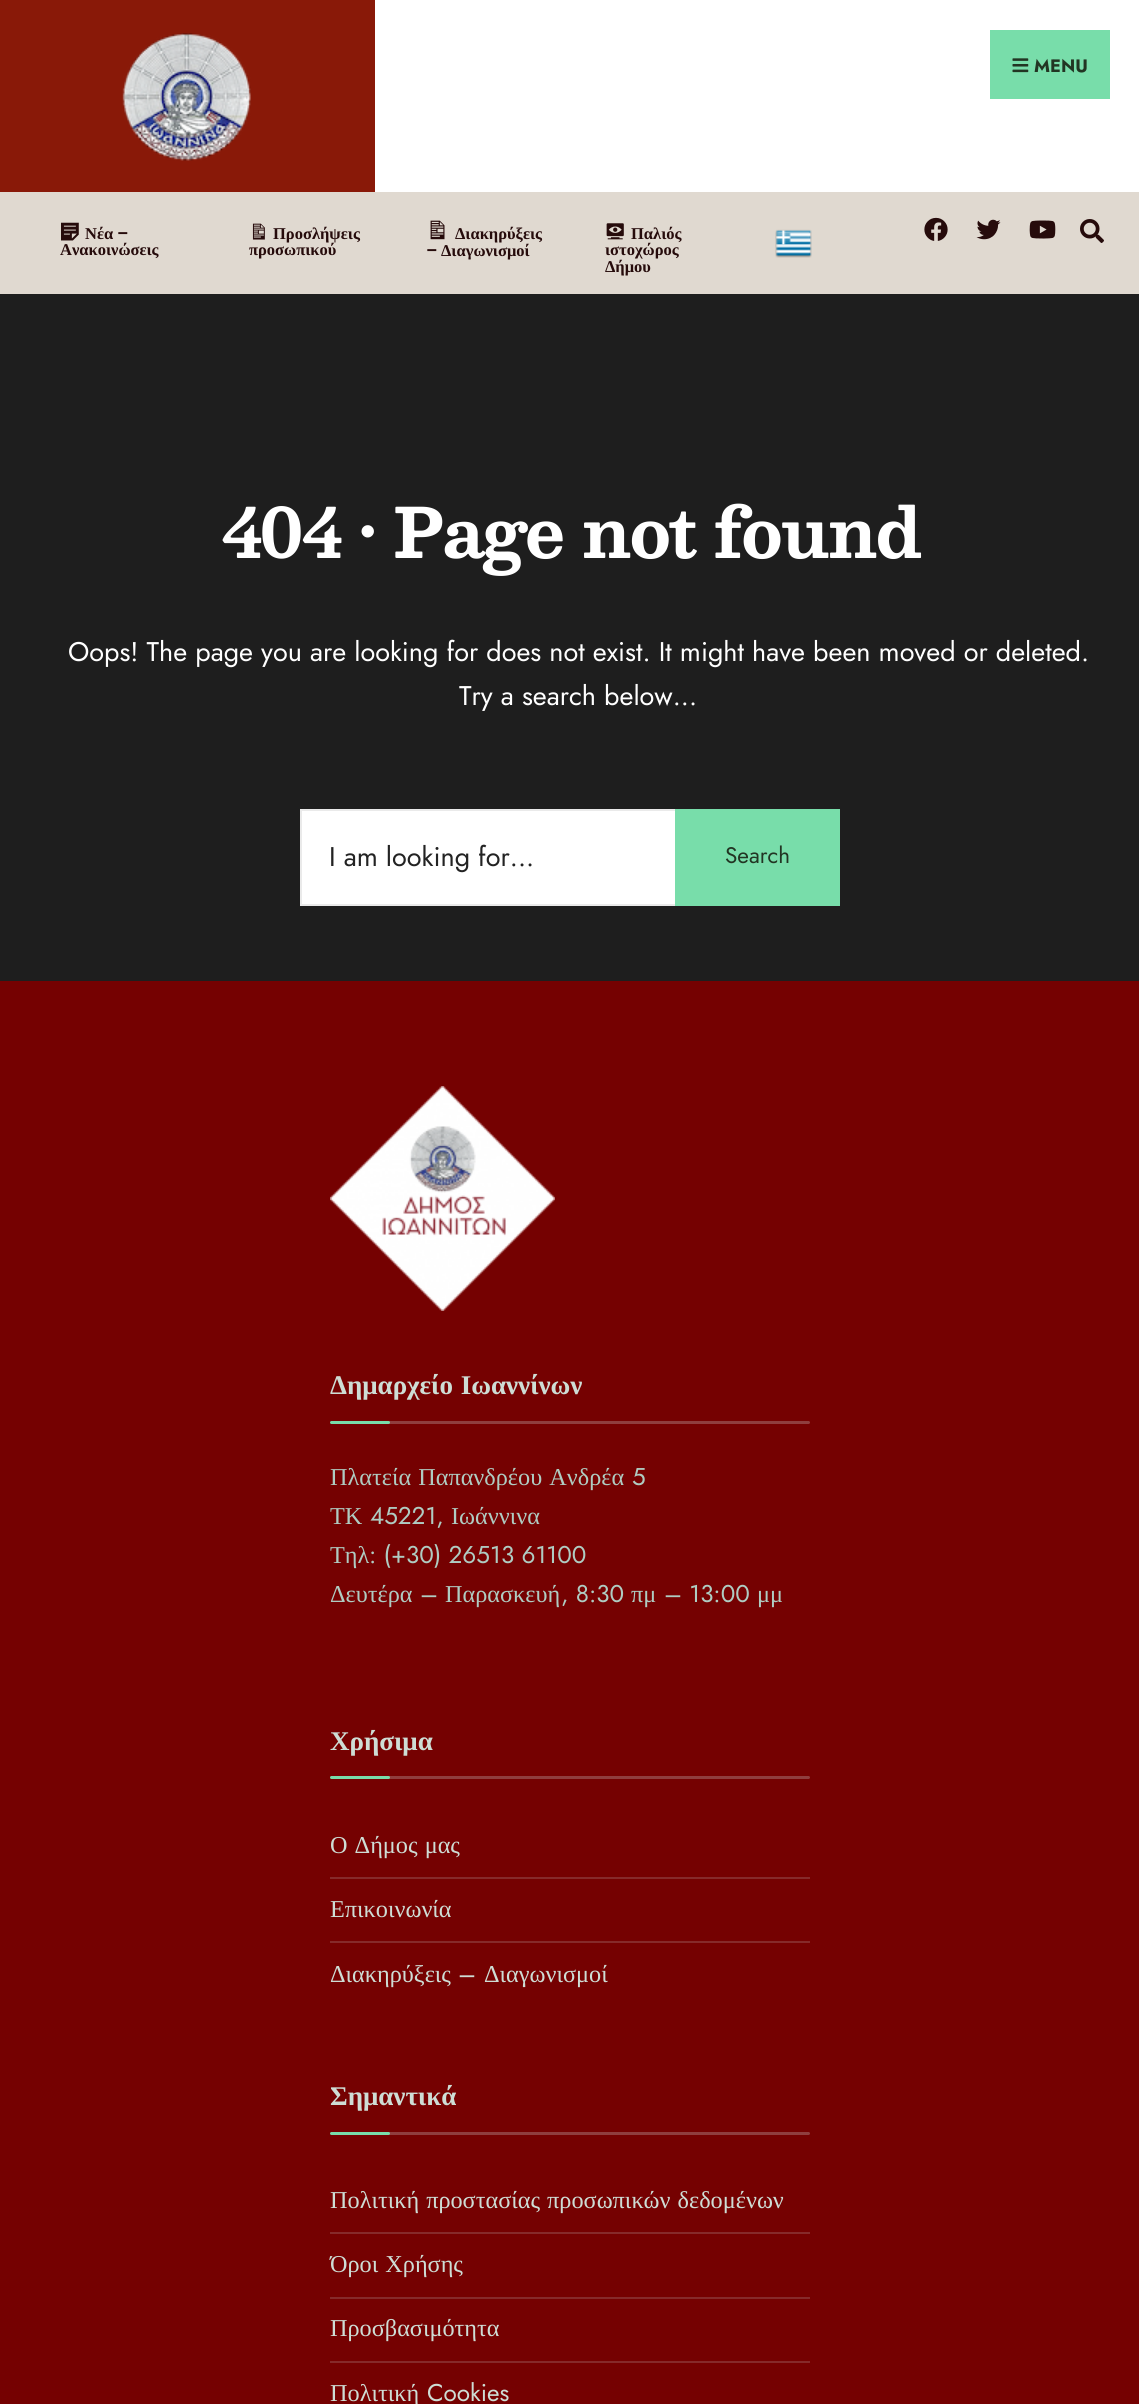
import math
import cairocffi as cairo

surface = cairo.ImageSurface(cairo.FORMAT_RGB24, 1139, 2404)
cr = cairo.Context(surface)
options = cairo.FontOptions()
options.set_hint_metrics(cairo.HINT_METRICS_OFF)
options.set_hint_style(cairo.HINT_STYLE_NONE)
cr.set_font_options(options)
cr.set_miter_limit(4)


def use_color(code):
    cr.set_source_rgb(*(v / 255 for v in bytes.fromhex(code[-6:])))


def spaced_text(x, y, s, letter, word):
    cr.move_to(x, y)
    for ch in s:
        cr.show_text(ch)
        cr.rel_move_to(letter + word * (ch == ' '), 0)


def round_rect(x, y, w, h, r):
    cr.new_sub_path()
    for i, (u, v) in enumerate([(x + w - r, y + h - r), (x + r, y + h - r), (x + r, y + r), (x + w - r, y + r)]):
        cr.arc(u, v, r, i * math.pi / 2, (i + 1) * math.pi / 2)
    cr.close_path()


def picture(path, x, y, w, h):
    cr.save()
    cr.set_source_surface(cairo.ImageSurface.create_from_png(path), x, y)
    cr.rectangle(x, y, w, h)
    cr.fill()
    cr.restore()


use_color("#1e1e1e")
cr.paint()
use_color("#ffffff")
cr.rectangle(375, 0, 764, 192)
cr.fill()
use_color("#891908")
cr.rectangle(0, 0, 375, 192)
cr.fill()
picture("img1.png", 122, 33, 129, 128)
use_color("#78ddaa")
cr.rectangle(990, 30, 120, 69)
cr.fill()
picture("img2.png", 1012, 58, 17, 15)
cr.select_font_face("Jost", cairo.FONT_SLANT_NORMAL, cairo.FONT_WEIGHT_BOLD)
cr.set_font_size(18)
use_color("#223523")
cr.move_to(1034, 72)
cr.show_text("MENU")
use_color("#e0d9d0")
cr.rectangle(0, 192, 1139, 102)
cr.fill()
picture("img3.png", 61, 222, 18, 19)
cr.select_font_face("Liberation Serif", cairo.FONT_SLANT_NORMAL, cairo.FONT_WEIGHT_BOLD)
cr.set_font_size(16.5)
use_color("#260b0b")
cr.move_to(85, 239)
cr.show_text("Νέα")
cr.select_font_face("Poppins SemiBold")
cr.move_to(117, 239)
cr.show_text("–")
cr.select_font_face("Liberation Serif", cairo.FONT_SLANT_NORMAL, cairo.FONT_WEIGHT_BOLD)
cr.move_to(60, 255)
cr.show_text("Ανακοινώσεις")
picture("img4.png", 252, 223, 13, 17)
cr.move_to(273, 239)
cr.show_text("Προσλήψεις")
cr.move_to(249, 255)
cr.show_text("προσωπικού")
picture("img5.png", 430, 220, 15, 20)
cr.move_to(455, 239)
cr.show_text("Διακηρύξεις")
cr.select_font_face("Poppins SemiBold")
cr.move_to(426, 256)
cr.show_text("–")
cr.select_font_face("Liberation Serif", cairo.FONT_SLANT_NORMAL, cairo.FONT_WEIGHT_BOLD)
cr.move_to(441, 256)
cr.show_text("Διαγωνισμοί")
picture("img6.png", 606, 223, 18, 17)
cr.move_to(631, 239)
cr.show_text("Παλιός")
cr.move_to(605, 255)
cr.show_text("ιστοχώρος")
cr.move_to(605, 272)
cr.show_text("Δήμου")
picture("img7.png", 775, 229, 37, 29)
picture("img8.png", 924, 217, 24, 24)
picture("img9.png", 976, 219, 25, 21)
picture("img10.png", 1029, 220, 27, 19)
picture("img11.png", 1080, 219, 24, 24)
cr.select_font_face("Besley", cairo.FONT_SLANT_NORMAL, cairo.FONT_WEIGHT_BOLD)
cr.set_font_size(68.4)
use_color("#ffffff")
spaced_text(221, 558, "404 • Page not found", -2, 0)
cr.select_font_face("Jost")
cr.set_font_size(27)
cr.move_to(68, 661)
cr.show_text("Oops! The page you are looking for does not exist. It might have been moved or deleted.")
cr.move_to(459, 705)
cr.show_text("Try a search below...")
cr.rectangle(302, 811, 373, 93)
cr.fill()
cr.rectangle(301, 810, 538, 95)
use_color("#eaeaea")
cr.stroke()
use_color("#232323")
cr.move_to(329, 866)
cr.show_text("I am looking for...")
use_color("#78ddaa")
cr.rectangle(675, 809, 165, 97)
cr.fill()
cr.set_font_size(22.5)
use_color("#223523")
cr.move_to(725, 863)
cr.show_text("Search")
use_color("#750101")
cr.rectangle(0, 981, 1139, 1423)
cr.fill()
picture("img12.png", 330, 1086, 225, 225)
cr.select_font_face("Liberation Serif", cairo.FONT_SLANT_NORMAL, cairo.FONT_WEIGHT_BOLD)
cr.set_font_size(27)
use_color("#ceddd5")
spaced_text(330, 1394, "Δημαρχείο Ιωαννίνων", 0, 1)
use_color("#8f3e3e")
round_rect(387, 1421, 423, 3, 1.5)
cr.fill()
use_color("#78ddaa")
round_rect(330, 1421, 60, 3, 1.5)
cr.fill()
cr.select_font_face("Liberation Serif")
cr.set_font_size(24.25)
use_color("#afccc2")
spaced_text(330, 1485, "Πλατεία Παπανδρέου Ανδρέα", 0, 1)
cr.select_font_face("Jost")
cr.move_to(632, 1485)
cr.show_text("5")
cr.select_font_face("Liberation Serif")
cr.move_to(330, 1524)
cr.show_text("ΤΚ")
cr.select_font_face("Jost")
cr.move_to(370, 1524)
cr.show_text("45221,")
cr.select_font_face("Liberation Serif")
cr.move_to(451, 1524)
cr.show_text("Ιωάννινα")
cr.move_to(330, 1563)
cr.show_text("Τηλ")
cr.select_font_face("Jost")
cr.move_to(369, 1563)
cr.show_text(": (+30) 26513 61100")
cr.select_font_face("Liberation Serif")
cr.move_to(330, 1602)
cr.show_text("Δευτέρα")
cr.select_font_face("Jost")
cr.move_to(420, 1602)
cr.show_text("–")
cr.select_font_face("Liberation Serif")
cr.move_to(445, 1602)
cr.show_text("Παρασκευή")
cr.select_font_face("Jost")
cr.move_to(561, 1602)
cr.show_text(", 8:30")
cr.select_font_face("Liberation Serif")
cr.move_to(631, 1602)
cr.show_text("πμ")
cr.select_font_face("Jost")
cr.move_to(664, 1602)
cr.show_text("– 13:00")
cr.select_font_face("Liberation Serif")
cr.move_to(757, 1602)
cr.show_text("μμ")
cr.select_font_face("Liberation Serif", cairo.FONT_SLANT_NORMAL, cairo.FONT_WEIGHT_BOLD)
cr.set_font_size(27)
use_color("#ceddd5")
cr.move_to(330, 1750)
cr.show_text("Χρήσιμα")
use_color("#8f3e3e")
round_rect(387, 1776, 423, 3, 1.5)
cr.fill()
use_color("#78ddaa")
round_rect(330, 1776, 60, 3, 1.5)
cr.fill()
cr.select_font_face("Liberation Serif")
cr.set_font_size(24.25)
use_color("#ceddd5")
spaced_text(330, 1853, "Ο Δήμος μας", 0, 1)
use_color("#862a2a")
cr.rectangle(330, 1877, 480, 2)
cr.fill()
use_color("#ceddd5")
cr.move_to(330, 1917)
cr.show_text("Επικοινωνία")
use_color("#862a2a")
cr.rectangle(330, 1941, 480, 2)
cr.fill()
use_color("#ceddd5")
cr.move_to(330, 1982)
cr.show_text("Διακηρύξεις")
cr.select_font_face("Jost")
cr.move_to(458, 1982)
cr.show_text("–")
cr.select_font_face("Liberation Serif")
cr.move_to(484, 1982)
cr.show_text("Διαγωνισμοί")
cr.select_font_face("Liberation Serif", cairo.FONT_SLANT_NORMAL, cairo.FONT_WEIGHT_BOLD)
cr.set_font_size(27)
cr.move_to(330, 2105)
cr.show_text("Σημαντικά")
use_color("#8f3e3e")
round_rect(387, 2132, 423, 3, 1.5)
cr.fill()
use_color("#78ddaa")
round_rect(330, 2132, 60, 3, 1.5)
cr.fill()
cr.select_font_face("Liberation Serif")
cr.set_font_size(24.25)
use_color("#ceddd5")
spaced_text(330, 2208, "Πολιτική προστασίας προσωπικών δεδομένων", 0, 1)
use_color("#862a2a")
cr.rectangle(330, 2232, 480, 2)
cr.fill()
use_color("#ceddd5")
spaced_text(330, 2272, "Όροι Χρήσης", 0, 1)
use_color("#862a2a")
cr.rectangle(330, 2297, 480, 2)
cr.fill()
use_color("#ceddd5")
cr.move_to(330, 2336)
cr.show_text("Προσβασιμότητα")
use_color("#862a2a")
cr.rectangle(330, 2361, 480, 2)
cr.fill()
use_color("#ceddd5")
cr.move_to(330, 2401)
cr.show_text("Πολιτική")
cr.select_font_face("Jost")
cr.move_to(427, 2401)
cr.show_text("Cookies")
surface.write_to_png("result.png")
